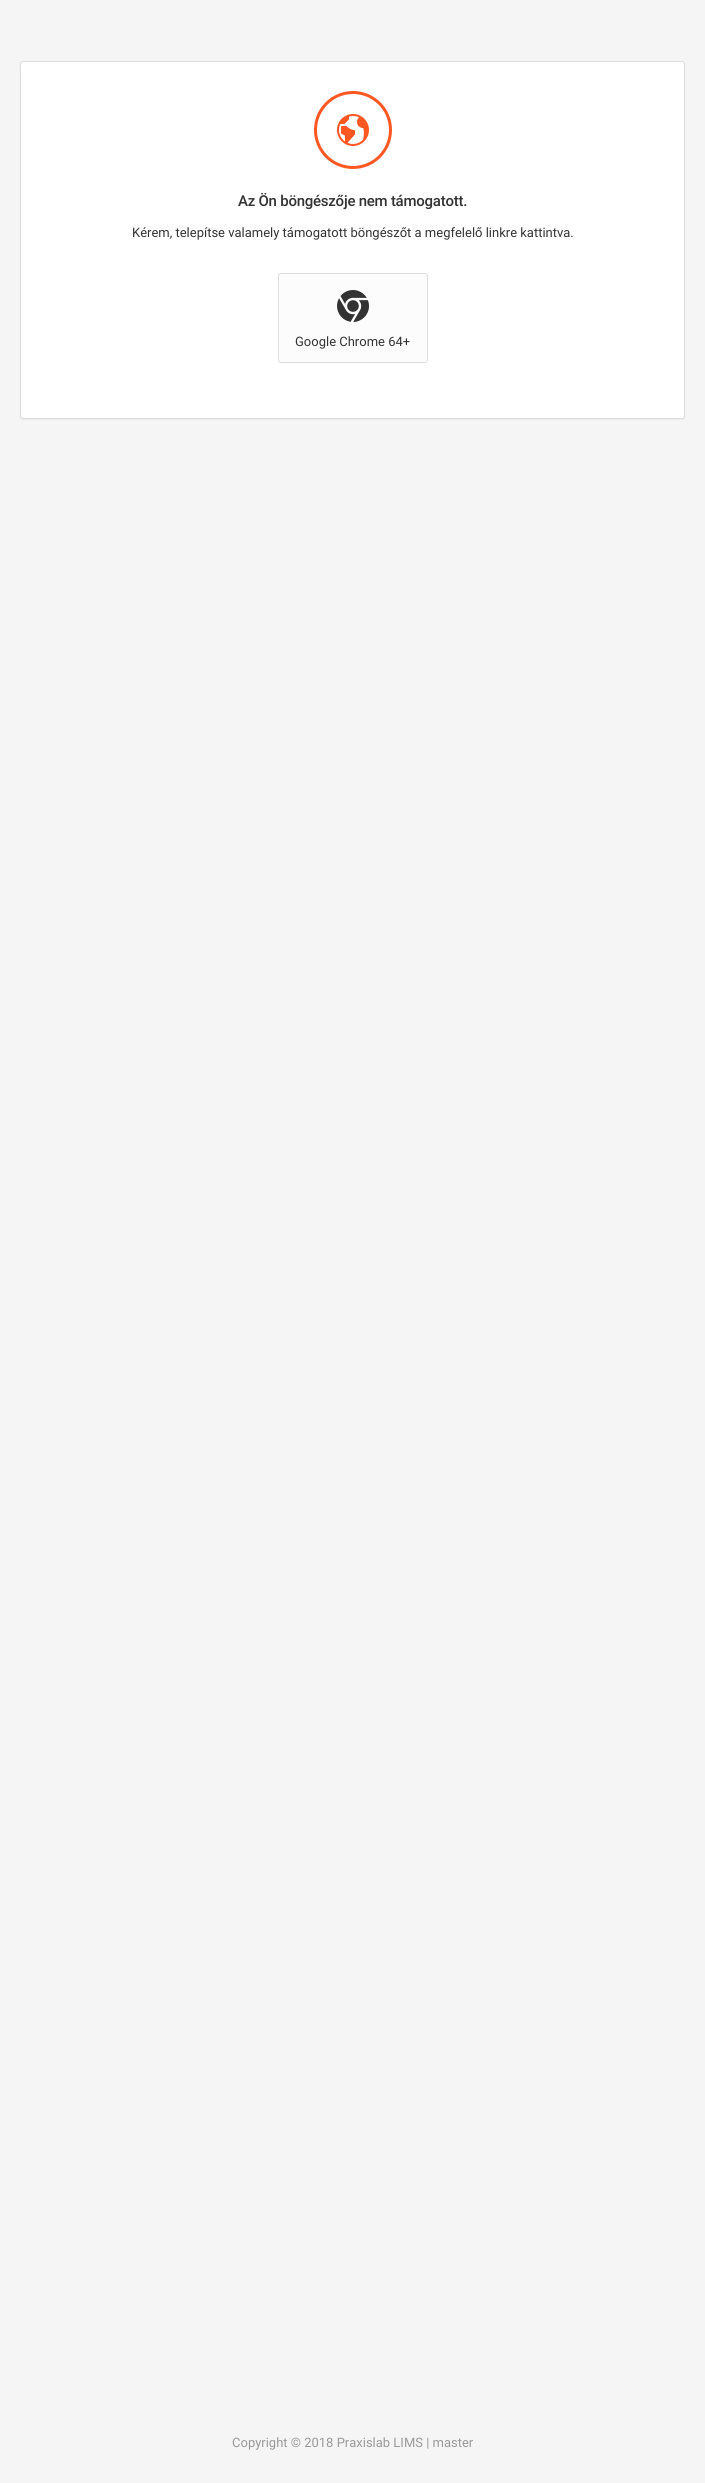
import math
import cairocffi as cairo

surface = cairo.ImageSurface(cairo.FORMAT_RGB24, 705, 2483)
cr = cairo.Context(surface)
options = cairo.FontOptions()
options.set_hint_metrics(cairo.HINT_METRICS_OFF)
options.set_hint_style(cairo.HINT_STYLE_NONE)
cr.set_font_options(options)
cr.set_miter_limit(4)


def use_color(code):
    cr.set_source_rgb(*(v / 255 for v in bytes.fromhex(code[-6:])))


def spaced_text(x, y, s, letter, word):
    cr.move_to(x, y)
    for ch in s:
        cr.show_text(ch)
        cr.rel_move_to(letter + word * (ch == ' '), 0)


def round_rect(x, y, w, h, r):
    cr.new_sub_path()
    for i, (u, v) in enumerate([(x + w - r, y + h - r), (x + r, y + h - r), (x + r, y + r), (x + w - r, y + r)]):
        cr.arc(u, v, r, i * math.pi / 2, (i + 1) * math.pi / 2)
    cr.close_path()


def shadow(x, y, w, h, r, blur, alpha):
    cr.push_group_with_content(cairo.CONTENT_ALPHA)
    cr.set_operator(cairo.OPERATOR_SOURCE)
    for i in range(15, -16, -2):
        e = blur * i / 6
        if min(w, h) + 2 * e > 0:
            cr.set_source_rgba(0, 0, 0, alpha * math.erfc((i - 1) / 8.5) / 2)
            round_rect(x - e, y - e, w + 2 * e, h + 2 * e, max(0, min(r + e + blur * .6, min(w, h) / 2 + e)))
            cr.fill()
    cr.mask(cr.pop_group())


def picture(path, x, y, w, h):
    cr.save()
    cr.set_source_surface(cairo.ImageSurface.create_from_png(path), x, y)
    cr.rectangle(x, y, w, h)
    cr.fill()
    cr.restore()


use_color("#f5f5f5")
cr.paint()
use_color("#000000")
shadow(20, 62, 665, 358, 3, 0.5, 0.05)
use_color("#ffffff")
round_rect(20.5, 61.5, 664, 357, 2.5)
cr.fill_preserve()
use_color("#dddddd")
cr.set_line_width(1)
cr.stroke()
cr.arc(353, 130, 37.5, 0, 2 * math.pi)
use_color("#ff5722")
cr.set_line_width(3)
cr.stroke()
picture("img1.png", 337, 114, 32, 32)
cr.select_font_face("Roboto Medium")
cr.set_font_size(15)
use_color("#333333")
spaced_text(238, 206, "Az Ön böngészője nem támogatott.", -0.25, 0)
cr.select_font_face("Roboto")
cr.set_font_size(13)
cr.move_to(132, 237)
cr.show_text("Kérem, telepítse valamely támogatott böngészőt a megfelelő linkre kattintva.")
use_color("#fcfcfc")
round_rect(278.5, 273.5, 149, 89, 2.5)
cr.fill_preserve()
use_color("#dddddd")
cr.set_line_width(1)
cr.stroke()
picture("img2.png", 337, 290, 32, 32)
use_color("#333333")
cr.move_to(295, 346)
cr.show_text("Google Chrome 64+")
use_color("#999999")
cr.move_to(232, 2447)
cr.show_text("Copyright © 2018 Praxislab LIMS | master")
surface.write_to_png("result.png")
